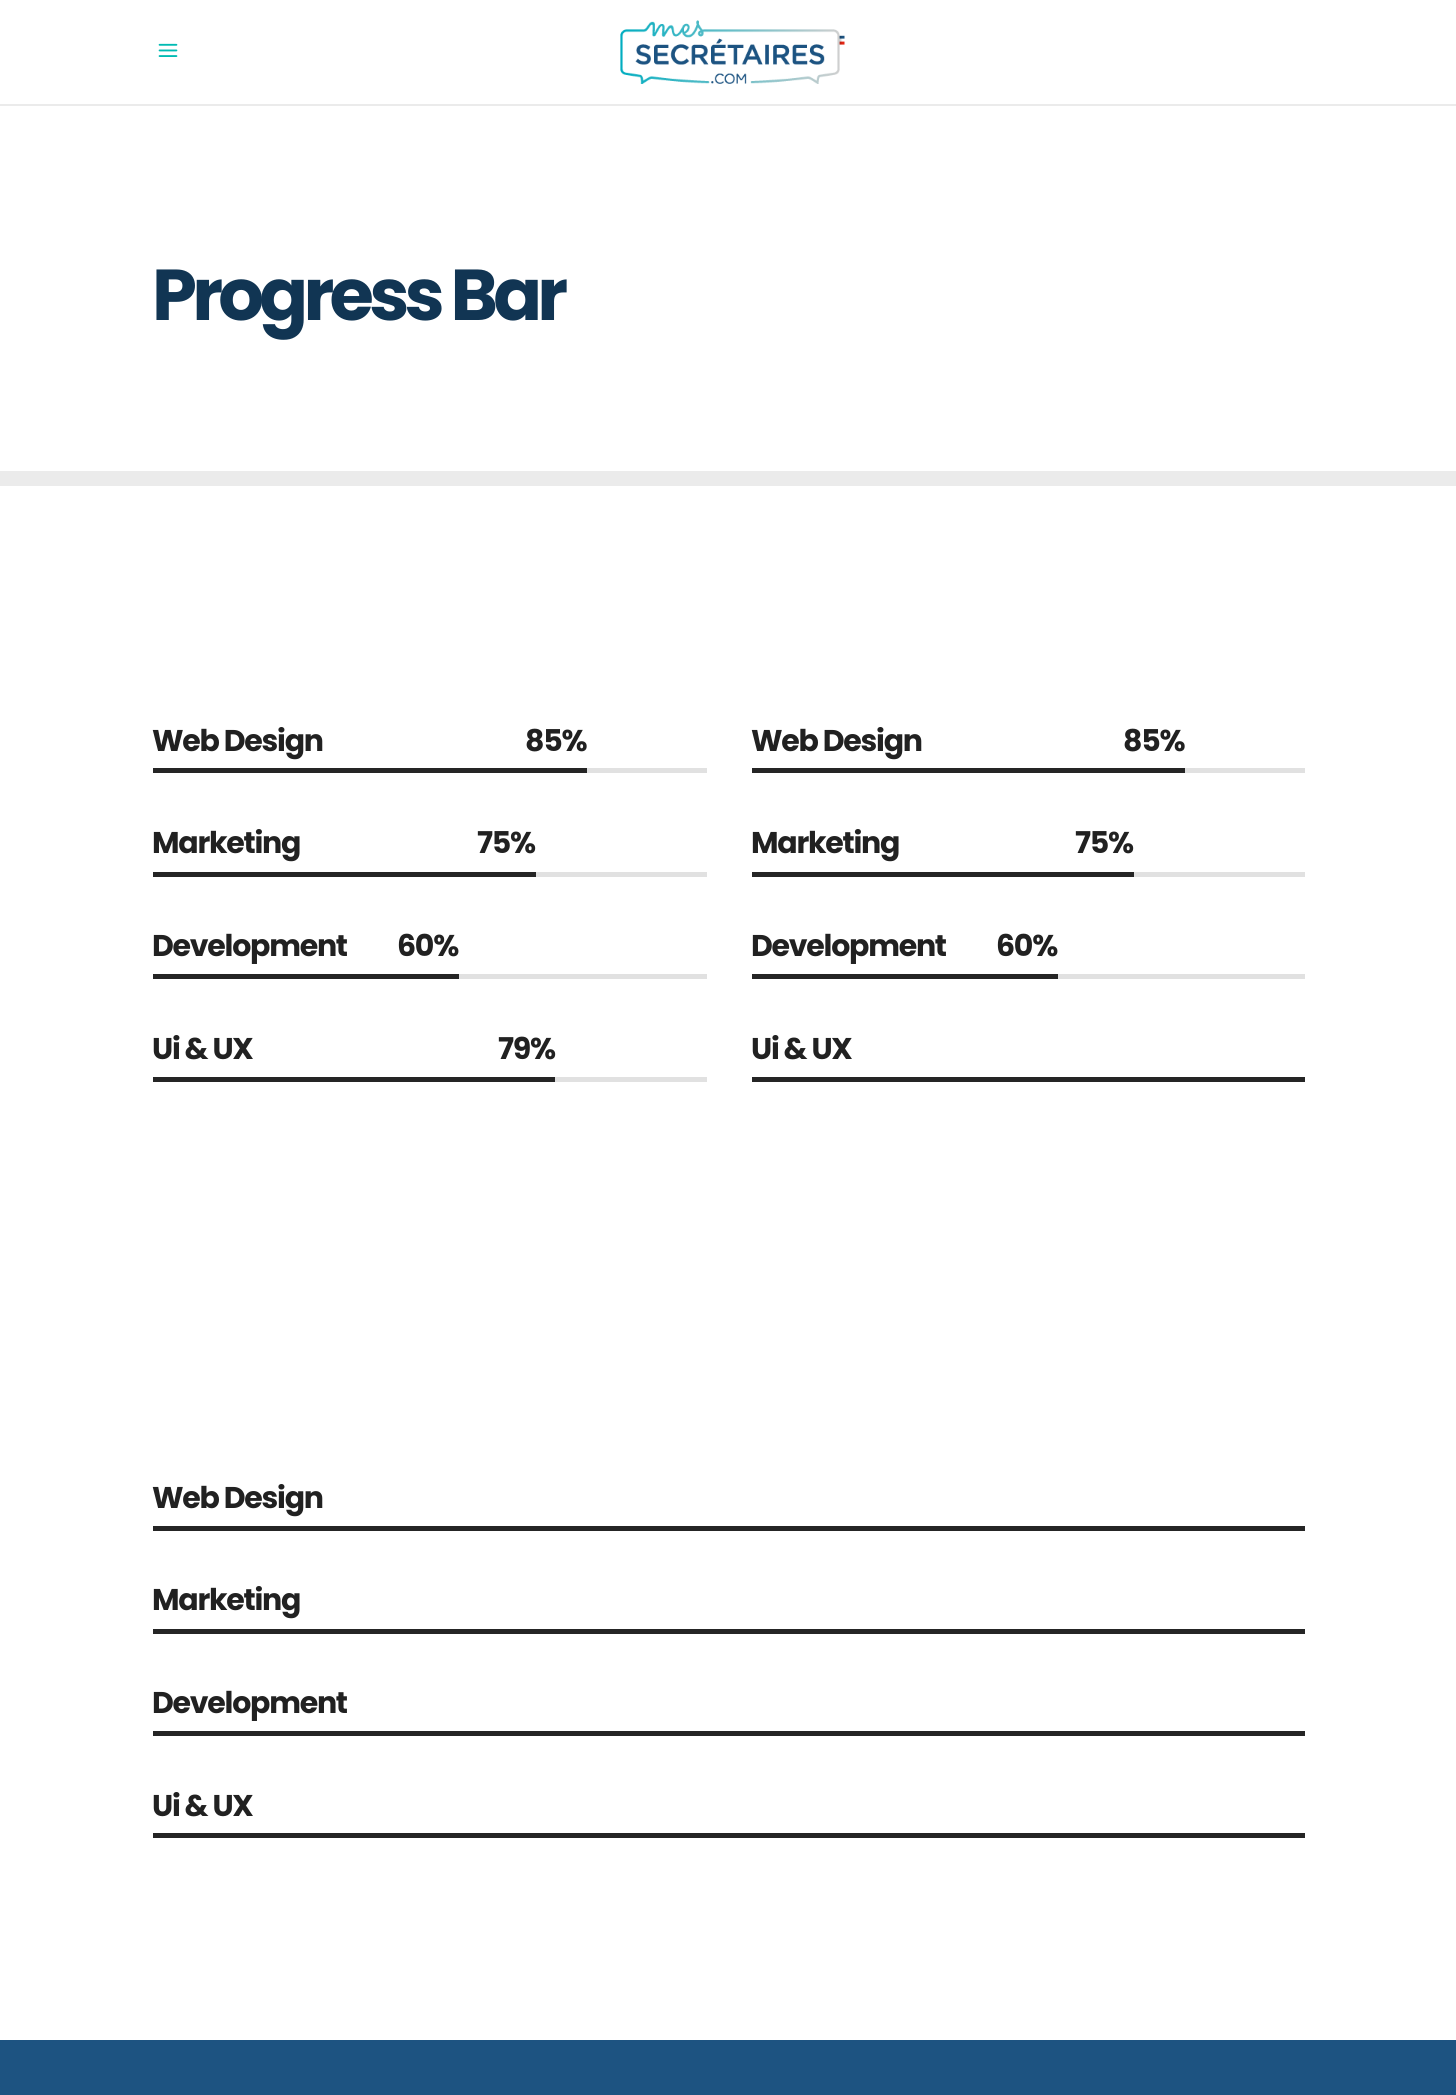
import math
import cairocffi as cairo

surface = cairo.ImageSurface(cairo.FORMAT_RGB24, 1456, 2095)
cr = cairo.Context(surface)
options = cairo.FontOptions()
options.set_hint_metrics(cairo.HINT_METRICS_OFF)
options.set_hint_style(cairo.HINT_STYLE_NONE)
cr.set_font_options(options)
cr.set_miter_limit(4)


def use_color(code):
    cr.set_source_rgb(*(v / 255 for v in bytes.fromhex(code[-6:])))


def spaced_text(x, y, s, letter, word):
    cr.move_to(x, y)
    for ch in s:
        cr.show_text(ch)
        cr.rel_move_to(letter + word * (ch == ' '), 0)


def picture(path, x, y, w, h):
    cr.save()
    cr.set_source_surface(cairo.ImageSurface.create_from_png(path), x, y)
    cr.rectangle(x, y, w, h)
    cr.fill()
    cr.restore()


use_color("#ffffff")
cr.paint()
use_color("#ebebeb")
cr.rectangle(0, 104, 1456, 2)
cr.fill()
picture("img1.png", 158, 43, 20, 14)
picture("img2.png", 620, 20, 225, 64)
cr.rectangle(0, 471, 1456, 15)
cr.fill()
cr.select_font_face("Poppins", cairo.FONT_SLANT_NORMAL, cairo.FONT_WEIGHT_BOLD)
cr.set_font_size(72)
use_color("#113553")
spaced_text(152, 320, "Progress Bar", -4.75, 0)
cr.set_font_size(30)
use_color("#212121")
spaced_text(152, 751, "Web Design", -1.25, 0)
use_color("#e1e1e1")
cr.rectangle(587, 768, 120, 5)
cr.fill()
use_color("#252525")
cr.rectangle(153, 768, 434, 5)
cr.fill()
use_color("#212121")
spaced_text(525, 751, "85%", -1.25, 0)
spaced_text(152, 853, "Marketing", -1.25, 0)
use_color("#e1e1e1")
cr.rectangle(536, 872, 171, 5)
cr.fill()
use_color("#252525")
cr.rectangle(153, 872, 383, 5)
cr.fill()
use_color("#212121")
spaced_text(477, 853, "75%", -1.25, 0)
spaced_text(152, 956, "Development", -1.25, 0)
use_color("#e1e1e1")
cr.rectangle(459, 974, 248, 5)
cr.fill()
use_color("#252525")
cr.rectangle(153, 974, 306, 5)
cr.fill()
use_color("#212121")
spaced_text(397, 956, "60%", -1.25, 0)
spaced_text(152, 1059, "Ui & UX", -1.25, 0)
use_color("#e1e1e1")
cr.rectangle(555, 1077, 152, 5)
cr.fill()
use_color("#252525")
cr.rectangle(153, 1077, 402, 5)
cr.fill()
use_color("#212121")
spaced_text(498, 1059, "79%", -1.25, 0)
spaced_text(751, 751, "Web Design", -1.25, 0)
use_color("#e1e1e1")
cr.rectangle(1185, 768, 120, 5)
cr.fill()
use_color("#252525")
cr.rectangle(752, 768, 433, 5)
cr.fill()
use_color("#212121")
spaced_text(1123, 751, "85%", -1.25, 0)
spaced_text(751, 853, "Marketing", -1.25, 0)
use_color("#e1e1e1")
cr.rectangle(1134, 872, 171, 5)
cr.fill()
use_color("#252525")
cr.rectangle(752, 872, 382, 5)
cr.fill()
use_color("#212121")
spaced_text(1075, 853, "75%", -1.25, 0)
spaced_text(751, 956, "Development", -1.25, 0)
use_color("#e1e1e1")
cr.rectangle(1058, 974, 247, 5)
cr.fill()
use_color("#252525")
cr.rectangle(752, 974, 306, 5)
cr.fill()
use_color("#212121")
spaced_text(996, 956, "60%", -1.25, 0)
spaced_text(751, 1059, "Ui & UX", -1.25, 0)
use_color("#252525")
cr.rectangle(752, 1077, 553, 5)
cr.fill()
use_color("#212121")
spaced_text(152, 1508, "Web Design", -1.25, 0)
use_color("#252525")
cr.rectangle(153, 1526, 1152, 5)
cr.fill()
use_color("#212121")
spaced_text(152, 1610, "Marketing", -1.25, 0)
use_color("#252525")
cr.rectangle(153, 1629, 1152, 5)
cr.fill()
use_color("#212121")
spaced_text(152, 1713, "Development", -1.25, 0)
use_color("#252525")
cr.rectangle(153, 1731, 1152, 5)
cr.fill()
use_color("#212121")
spaced_text(152, 1816, "Ui & UX", -1.25, 0)
use_color("#252525")
cr.rectangle(153, 1833, 1152, 5)
cr.fill()
use_color("#1d5381")
cr.rectangle(0, 2040, 1456, 55)
cr.fill()
surface.write_to_png("result.png")
